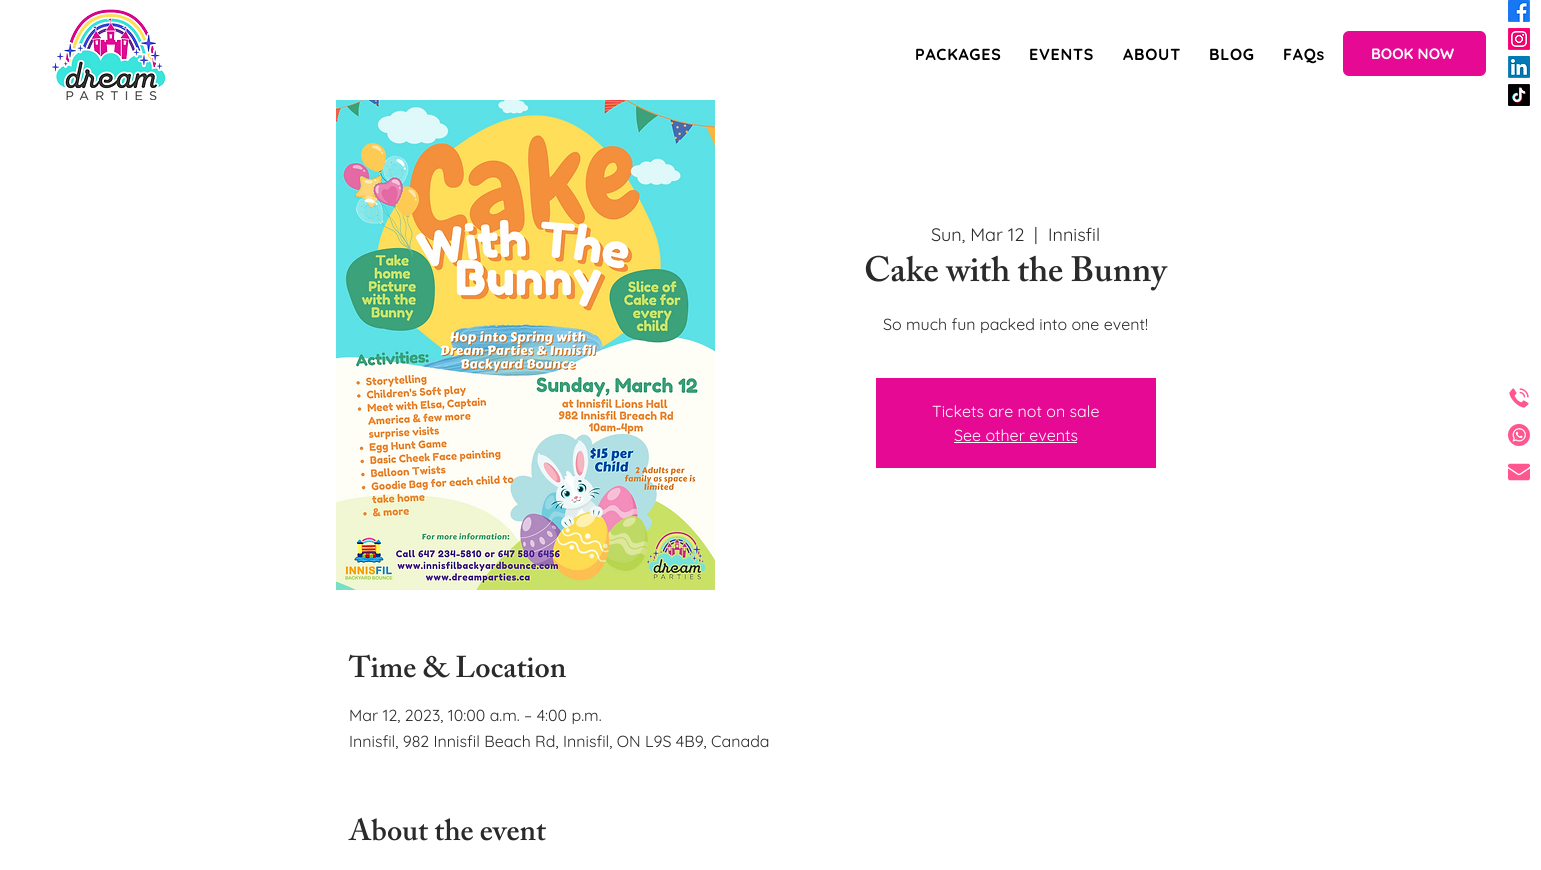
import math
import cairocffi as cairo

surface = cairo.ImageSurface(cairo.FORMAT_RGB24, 1541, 870)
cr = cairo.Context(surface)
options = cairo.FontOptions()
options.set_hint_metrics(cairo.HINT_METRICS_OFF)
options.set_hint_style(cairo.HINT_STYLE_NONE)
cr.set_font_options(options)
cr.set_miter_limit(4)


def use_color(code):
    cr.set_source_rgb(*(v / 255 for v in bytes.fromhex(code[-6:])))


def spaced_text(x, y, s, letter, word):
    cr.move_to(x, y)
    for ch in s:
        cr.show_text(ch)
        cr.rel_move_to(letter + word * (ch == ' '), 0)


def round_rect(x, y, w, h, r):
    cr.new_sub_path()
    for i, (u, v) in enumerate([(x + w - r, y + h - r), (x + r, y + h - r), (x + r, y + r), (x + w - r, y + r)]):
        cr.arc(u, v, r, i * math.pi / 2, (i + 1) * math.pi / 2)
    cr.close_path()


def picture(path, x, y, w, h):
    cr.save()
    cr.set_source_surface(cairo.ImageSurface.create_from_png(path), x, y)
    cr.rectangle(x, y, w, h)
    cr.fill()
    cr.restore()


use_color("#ffffff")
cr.paint()
picture("img1.png", 52, 8, 115, 92)
cr.select_font_face("Quicksand", cairo.FONT_SLANT_NORMAL, cairo.FONT_WEIGHT_BOLD)
cr.set_font_size(16)
use_color("#000000")
spaced_text(915, 60, "PACKAGES", 0.75, 0)
spaced_text(1029, 60, "EVENTS", 0.75, 0)
spaced_text(1123, 60, "ABOUT", 0.75, 0)
spaced_text(1209, 60, "BLOG", 0.75, 0)
spaced_text(1283, 60, "FAQs", 0.75, 0)
use_color("#e50994")
round_rect(1343, 31, 143, 45, 6)
cr.fill()
cr.set_font_size(15)
use_color("#ffffff")
cr.move_to(1371, 59)
cr.show_text("BOOK NOW")
picture("img2.png", 1508, 0, 22, 22)
picture("img3.png", 1508, 28, 22, 22)
picture("img4.png", 1508, 56, 22, 22)
picture("img5.png", 1508, 84, 22, 22)
picture("img6.png", 336, 100, 379, 490)
cr.select_font_face("Quicksand")
cr.set_font_size(18)
use_color("#2a2a2a")
cr.move_to(931, 241)
cr.show_text("Sun, Mar 12")
cr.move_to(1034, 241)
cr.show_text("|")
cr.move_to(1048, 241)
cr.show_text("Innisfil")
cr.select_font_face("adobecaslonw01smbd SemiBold")
cr.set_font_size(35)
cr.move_to(864, 281)
cr.show_text("Cake with the Bunny")
cr.select_font_face("Quicksand")
cr.set_font_size(16)
cr.move_to(883, 330)
cr.show_text("So much fun packed into one event!")
use_color("#e50994")
cr.rectangle(876, 378, 280, 90)
cr.fill()
use_color("#ffffff")
cr.move_to(932, 417)
cr.show_text("Tickets are not on sale")
cr.move_to(954, 441)
cr.show_text("See other events")
cr.rectangle(954, 442, 123, 1)
cr.fill()
cr.select_font_face("adobecaslonw01smbd SemiBold")
cr.set_font_size(30)
use_color("#2a2a2a")
cr.move_to(349, 677)
cr.show_text("Time & Location")
cr.select_font_face("Quicksand")
cr.set_font_size(16)
cr.move_to(349, 721)
cr.show_text("Mar 12, 2023, 10:00 a.m. – 4:00 p.m.")
cr.move_to(349, 747)
cr.show_text("Innisfil, 982 Innisfil Beach Rd, Innisfil, ON L9S 4B9, Canada")
cr.select_font_face("adobecaslonw01smbd SemiBold")
cr.set_font_size(30)
cr.move_to(349, 840)
cr.show_text("About the event")
picture("img7.png", 1509, 388, 20, 20)
picture("img8.png", 1508, 424, 22, 22)
picture("img9.png", 1508, 463, 22, 18)
surface.write_to_png("result.png")
